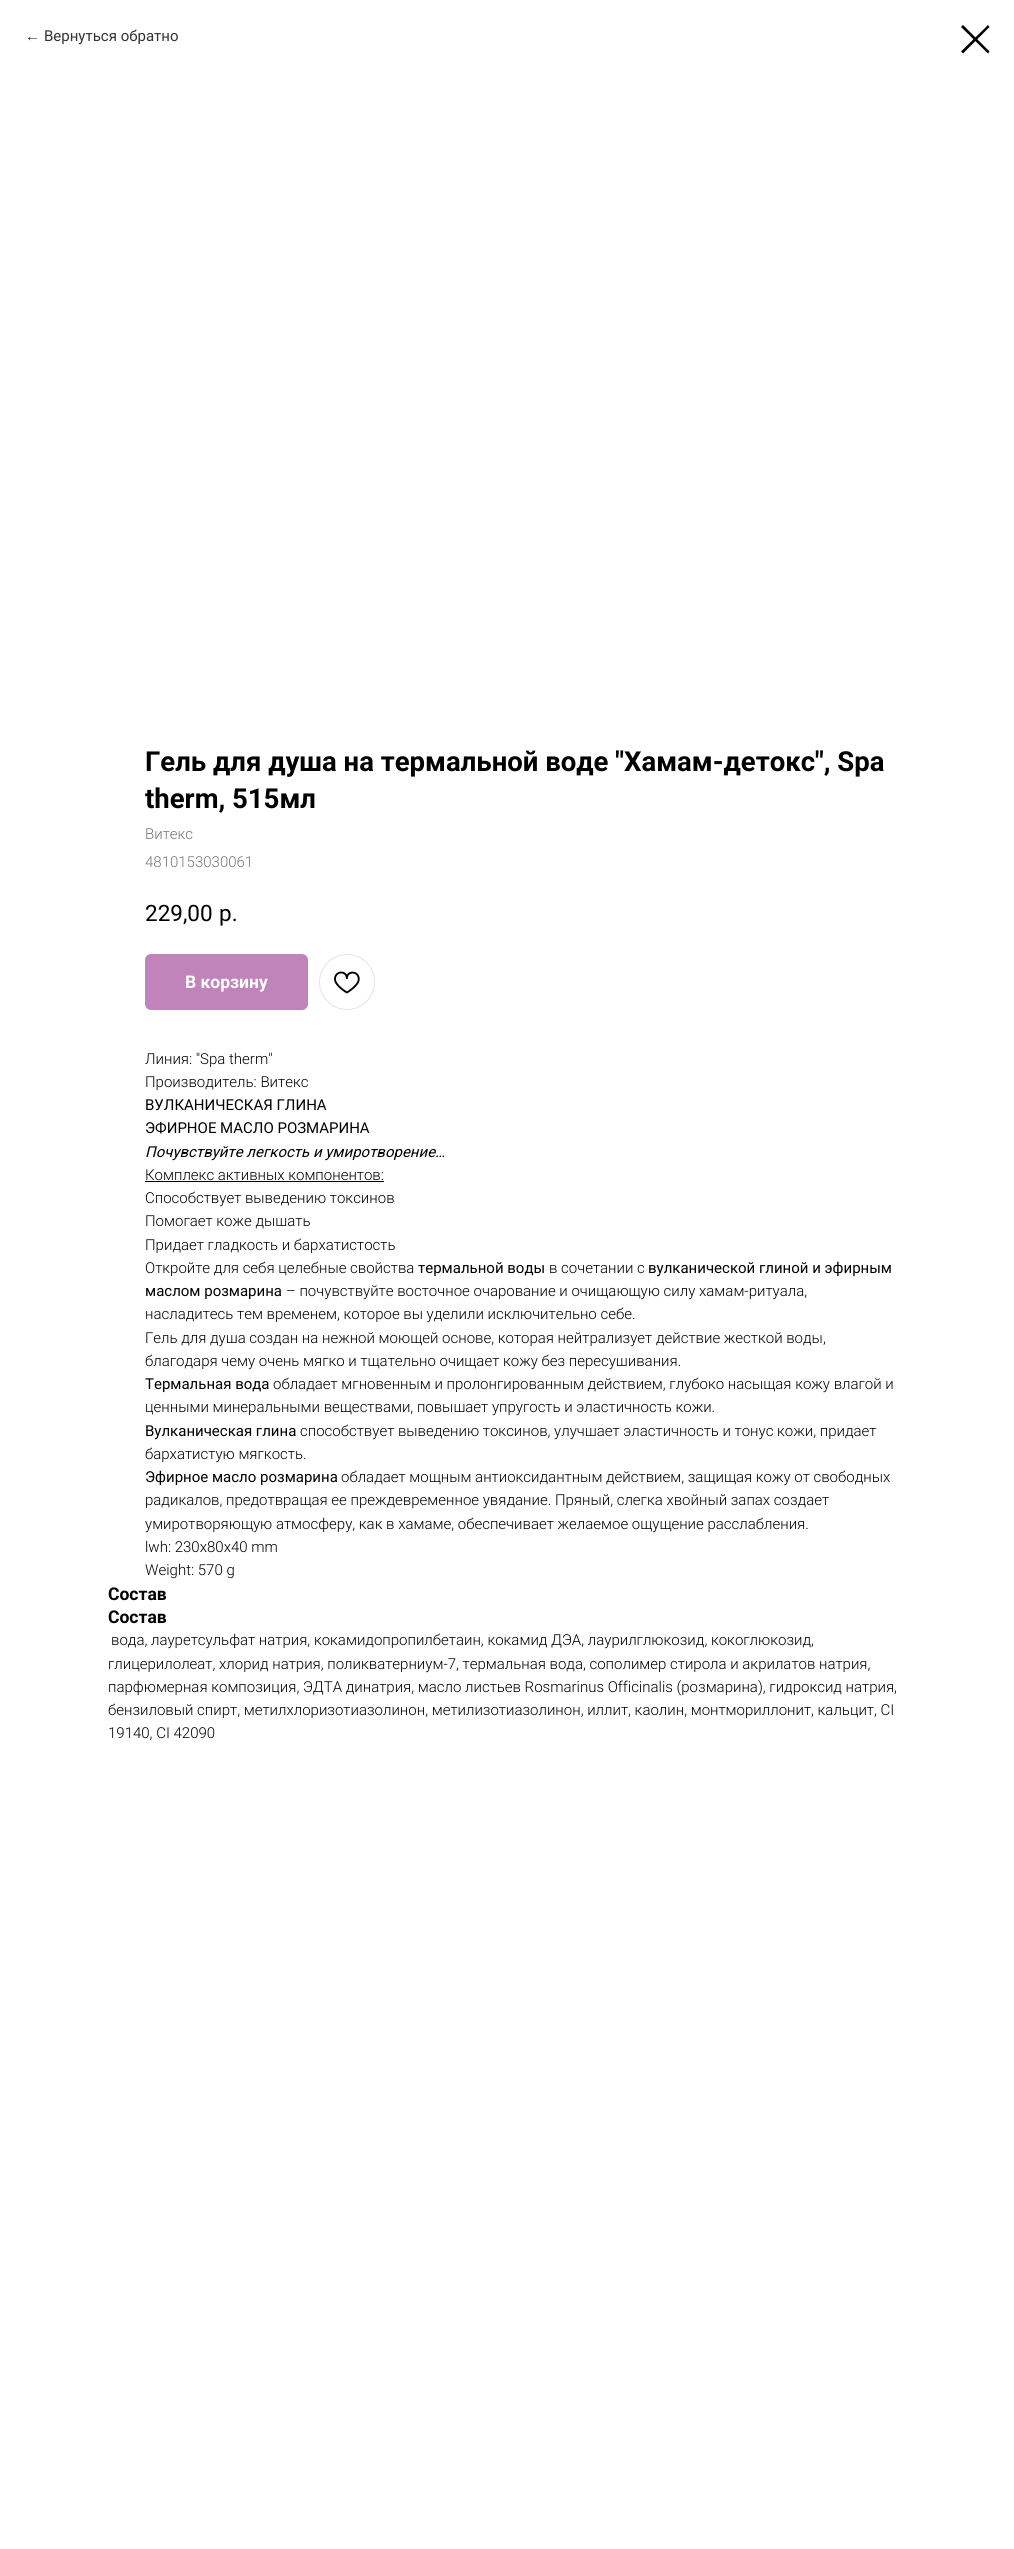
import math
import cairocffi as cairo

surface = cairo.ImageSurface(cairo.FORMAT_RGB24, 1014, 2549)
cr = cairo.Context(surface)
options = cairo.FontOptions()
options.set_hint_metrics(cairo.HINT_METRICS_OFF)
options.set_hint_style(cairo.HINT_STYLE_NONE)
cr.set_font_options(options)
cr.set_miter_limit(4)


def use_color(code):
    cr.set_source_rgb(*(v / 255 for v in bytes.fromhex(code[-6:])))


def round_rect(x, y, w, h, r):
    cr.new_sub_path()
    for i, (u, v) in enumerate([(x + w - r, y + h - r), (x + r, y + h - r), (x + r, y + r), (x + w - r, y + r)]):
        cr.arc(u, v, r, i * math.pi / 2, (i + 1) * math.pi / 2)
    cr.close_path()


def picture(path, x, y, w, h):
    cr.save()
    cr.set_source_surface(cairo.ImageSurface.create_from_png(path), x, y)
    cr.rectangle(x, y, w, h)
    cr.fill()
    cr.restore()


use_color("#ffffff")
cr.paint()
cr.select_font_face("Liberation Sans")
cr.set_font_size(15)
use_color("#333333")
cr.move_to(25, 41)
cr.show_text("←")
cr.select_font_face("Roboto")
cr.move_to(44, 41)
cr.show_text("Вернуться обратно")
use_color("#000000")
cr.set_fill_rule(cairo.FILL_RULE_EVEN_ODD)
cr.new_path()
cr.move_to(961, 27)
cr.line_to(963, 25)
cr.line_to(989.5, 51.5)
cr.line_to(988, 53.5)
cr.close_path()
cr.fill()
cr.new_path()
cr.move_to(988, 25)
cr.line_to(989.5, 27)
cr.line_to(963, 53.5)
cr.line_to(961, 51.5)
cr.close_path()
cr.fill()
cr.select_font_face("Roboto", cairo.FONT_SLANT_NORMAL, cairo.FONT_WEIGHT_BOLD)
cr.set_font_size(27.5)
cr.move_to(145, 771)
cr.show_text("Гель для душа на термальной воде \"Хамам-детокс\", Spa")
cr.move_to(145, 808)
cr.show_text("therm, 515мл")
cr.select_font_face("Roboto Light")
cr.set_font_size(15)
use_color("#777777")
cr.move_to(145, 839)
cr.show_text("Витекс")
cr.move_to(145, 867)
cr.show_text("4810153030061")
cr.select_font_face("Roboto")
cr.set_font_size(22.5)
use_color("#000000")
cr.move_to(145, 921)
cr.show_text("229,00")
cr.move_to(219, 921)
cr.show_text("р.")
use_color("#c084bb")
round_rect(145, 954, 163, 56, 6)
cr.fill()
cr.select_font_face("Roboto", cairo.FONT_SLANT_NORMAL, cairo.FONT_WEIGHT_BOLD)
cr.set_font_size(17.5)
use_color("#ffffff")
cr.move_to(185, 988)
cr.show_text("В корзину")
cr.new_path()
cr.arc(347, 982, 27.5, 0, 2 * math.pi)
use_color("#e4e4e4")
cr.set_line_width(1)
cr.stroke()
picture("img1.png", 334, 971, 26, 23)
cr.select_font_face("Roboto Light")
cr.set_font_size(15)
use_color("#000000")
cr.move_to(145, 1064)
cr.show_text("Линия: \"Spa therm\"")
cr.move_to(145, 1087)
cr.show_text("Производитель: Витекс")
cr.select_font_face("Roboto")
cr.move_to(145, 1110)
cr.show_text("ВУЛКАНИЧЕСКАЯ ГЛИНА")
cr.move_to(145, 1133)
cr.show_text("ЭФИРНОЕ МАСЛО РОЗМАРИНА")
cr.select_font_face("Roboto", cairo.FONT_SLANT_ITALIC)
cr.move_to(145, 1157)
cr.show_text("Почувствуйте легкость и умиротворение…")
cr.select_font_face("Roboto Light")
cr.move_to(145, 1180)
cr.show_text("Комплекс активных компонентов:")
cr.rectangle(145, 1181, 239, 1)
cr.fill()
cr.move_to(145, 1203)
cr.show_text("Способствует выведению токсинов")
cr.move_to(145, 1226)
cr.show_text("Помогает коже дышать")
cr.move_to(145, 1250)
cr.show_text("Придает гладкость и бархатистость")
cr.move_to(145, 1273)
cr.show_text("Откройте для себя целебные свойства")
cr.select_font_face("Roboto")
cr.move_to(418, 1273)
cr.show_text("термальной воды")
cr.select_font_face("Roboto Light")
cr.move_to(549, 1273)
cr.show_text("в сочетании с")
cr.select_font_face("Roboto")
cr.move_to(648, 1273)
cr.show_text("вулканической глиной и эфирным")
cr.move_to(145, 1296)
cr.show_text("маслом розмарина")
cr.select_font_face("Roboto Light")
cr.move_to(286, 1296)
cr.show_text("– почувствуйте восточное очарование и очищающую силу хамам-ритуала,")
cr.move_to(145, 1319)
cr.show_text("насладитесь тем временем, которое вы уделили исключительно себе.")
cr.move_to(145, 1343)
cr.show_text("Гель для душа создан на нежной моющей основе, которая нейтрализует действие жесткой воды,")
cr.move_to(145, 1366)
cr.show_text("благодаря чему очень мягко и тщательно очищает кожу без пересушивания.")
cr.select_font_face("Roboto")
cr.move_to(145, 1389)
cr.show_text("Термальная вода")
cr.select_font_face("Roboto Light")
cr.move_to(273, 1389)
cr.show_text("обладает мгновенным и пролонгированным действием, глубоко насыщая кожу влагой и")
cr.move_to(145, 1412)
cr.show_text("ценными минеральными веществами, повышает упругость и эластичность кожи.")
cr.select_font_face("Roboto")
cr.move_to(145, 1436)
cr.show_text("Вулканическая глина")
cr.select_font_face("Roboto Light")
cr.move_to(300, 1436)
cr.show_text("способствует выведению токсинов, улучшает эластичность и тонус кожи, придает")
cr.move_to(145, 1459)
cr.show_text("бархатистую мягкость.")
cr.select_font_face("Roboto")
cr.move_to(145, 1482)
cr.show_text("Эфирное масло розмарина")
cr.select_font_face("Roboto Light")
cr.move_to(341, 1482)
cr.show_text("обладает мощным антиоксидантным действием, защищая кожу от свободных")
cr.move_to(145, 1505)
cr.show_text("радикалов, предотвращая ее преждевременное увядание. Пряный, слегка хвойный запах создает")
cr.move_to(145, 1529)
cr.show_text("умиротворяющую атмосферу, как в хамаме, обеспечивает желаемое ощущение расслабления.")
cr.move_to(145, 1552)
cr.show_text("lwh: 230x80x40 mm")
cr.move_to(145, 1575)
cr.show_text("Weight: 570 g")
cr.select_font_face("Roboto", cairo.FONT_SLANT_NORMAL, cairo.FONT_WEIGHT_BOLD)
cr.set_font_size(17.5)
cr.move_to(108, 1600)
cr.show_text("Состав")
cr.move_to(108, 1623)
cr.show_text("Состав")
cr.select_font_face("Roboto Light")
cr.set_font_size(15)
cr.move_to(111, 1645)
cr.show_text("вода, лауретсульфат натрия, кокамидопропилбетаин, кокамид ДЭА, лаурилглюкозид, кокоглюкозид,")
cr.move_to(108, 1669)
cr.show_text("глицерилолеат, хлорид натрия, поликватерниум-7, термальная вода, сополимер стирола и акрилатов натрия,")
cr.move_to(108, 1692)
cr.show_text("парфюмерная композиция, ЭДТА динатрия, масло листьев Rosmarinus Officinalis (розмарина), гидроксид натрия,")
cr.move_to(108, 1715)
cr.show_text("бензиловый спирт, метилхлоризотиазолинон, метилизотиазолинон, иллит, каолин, монтмориллонит, кальцит, CI")
cr.move_to(108, 1738)
cr.show_text("19140, CI 42090")
surface.write_to_png("result.png")
